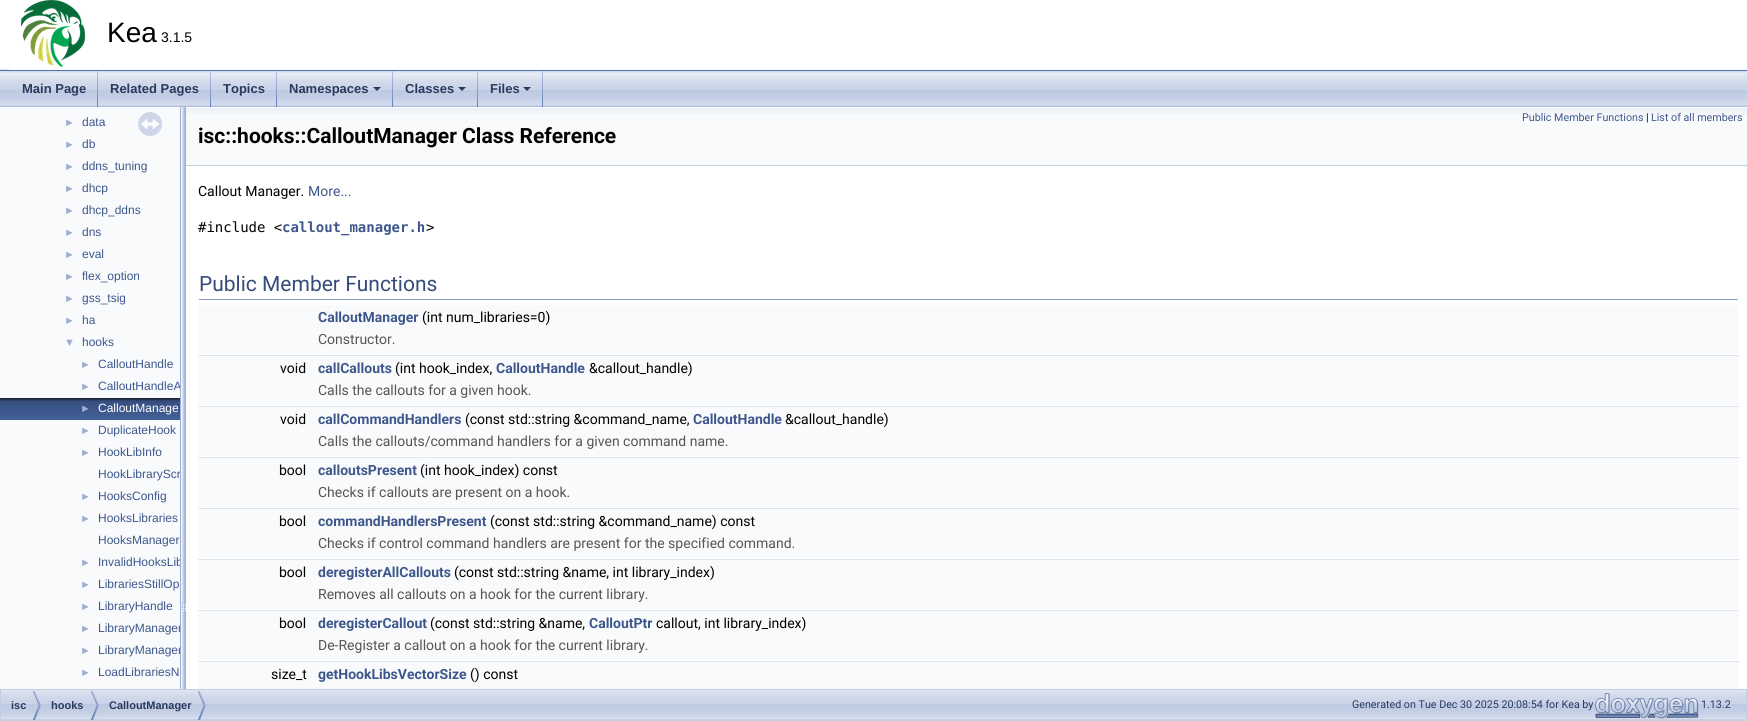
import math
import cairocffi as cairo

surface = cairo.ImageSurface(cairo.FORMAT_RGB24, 1747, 721)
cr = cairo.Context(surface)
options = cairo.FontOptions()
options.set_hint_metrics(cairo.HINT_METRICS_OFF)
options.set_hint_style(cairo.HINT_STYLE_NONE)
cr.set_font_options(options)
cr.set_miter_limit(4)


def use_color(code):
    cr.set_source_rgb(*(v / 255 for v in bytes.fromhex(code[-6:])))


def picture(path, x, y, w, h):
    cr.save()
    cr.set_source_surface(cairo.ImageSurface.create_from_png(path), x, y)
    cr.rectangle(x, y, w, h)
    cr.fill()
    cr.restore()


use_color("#ffffff")
cr.paint()
use_color("#5373b4")
cr.rectangle(0, 70, 1747, 1)
cr.fill()
picture("img1.png", 0, 0, 86, 70)
cr.select_font_face("Liberation Sans")
cr.set_font_size(28)
use_color("#000000")
cr.move_to(107, 42)
cr.show_text("Kea")
cr.set_font_size(14)
cr.move_to(161, 42)
cr.show_text("3.1.5")
picture("img2.png", 0, 71, 1747, 36)
picture("img3.png", 97, 71, 1, 36)
cr.select_font_face("Liberation Sans", cairo.FONT_SLANT_NORMAL, cairo.FONT_WEIGHT_BOLD)
cr.set_font_size(13)
use_color("#283a5d")
cr.move_to(22, 93)
cr.show_text("Main Page")
picture("img3.png", 210, 71, 1, 36)
cr.move_to(110, 93)
cr.show_text("Related Pages")
picture("img3.png", 276, 71, 1, 36)
cr.move_to(223, 93)
cr.show_text("Topics")
picture("img3.png", 392, 71, 1, 36)
cr.move_to(289, 93)
cr.show_text("Namespaces")
cr.new_path()
cr.move_to(373, 87)
cr.line_to(381, 87)
cr.line_to(377, 91)
cr.close_path()
cr.fill()
picture("img3.png", 477, 71, 1, 36)
cr.move_to(405, 93)
cr.show_text("Classes")
cr.new_path()
cr.move_to(458, 87)
cr.line_to(466, 87)
cr.line_to(462, 91)
cr.close_path()
cr.fill()
picture("img3.png", 542, 71, 1, 36)
cr.move_to(490, 93)
cr.show_text("Files")
cr.new_path()
cr.move_to(523, 87)
cr.line_to(531, 87)
cr.line_to(527, 91)
cr.close_path()
cr.fill()
use_color("#f9fafc")
cr.rectangle(0, 107, 180, 582)
cr.fill()
picture("img4.png", 138, 112, 24, 24)
cr.select_font_face("Liberation Sans")
cr.set_font_size(11)
use_color("#9cafd4")
cr.move_to(64, 126)
cr.show_text("►")
cr.set_font_size(12)
use_color("#3d578c")
cr.move_to(82, 126)
cr.show_text("data")
cr.set_font_size(11)
use_color("#9cafd4")
cr.move_to(64, 148)
cr.show_text("►")
cr.set_font_size(12)
use_color("#3d578c")
cr.move_to(82, 148)
cr.show_text("db")
cr.set_font_size(11)
use_color("#9cafd4")
cr.move_to(64, 170)
cr.show_text("►")
cr.set_font_size(12)
use_color("#3d578c")
cr.move_to(82, 170)
cr.show_text("ddns_tuning")
cr.set_font_size(11)
use_color("#9cafd4")
cr.move_to(64, 192)
cr.show_text("►")
cr.set_font_size(12)
use_color("#3d578c")
cr.move_to(82, 192)
cr.show_text("dhcp")
cr.set_font_size(11)
use_color("#9cafd4")
cr.move_to(64, 214)
cr.show_text("►")
cr.set_font_size(12)
use_color("#3d578c")
cr.move_to(82, 214)
cr.show_text("dhcp_ddns")
cr.set_font_size(11)
use_color("#9cafd4")
cr.move_to(64, 236)
cr.show_text("►")
cr.set_font_size(12)
use_color("#3d578c")
cr.move_to(82, 236)
cr.show_text("dns")
cr.set_font_size(11)
use_color("#9cafd4")
cr.move_to(64, 258)
cr.show_text("►")
cr.set_font_size(12)
use_color("#3d578c")
cr.move_to(82, 258)
cr.show_text("eval")
cr.set_font_size(11)
use_color("#9cafd4")
cr.move_to(64, 280)
cr.show_text("►")
cr.set_font_size(12)
use_color("#3d578c")
cr.move_to(82, 280)
cr.show_text("flex_option")
cr.set_font_size(11)
use_color("#9cafd4")
cr.move_to(64, 302)
cr.show_text("►")
cr.set_font_size(12)
use_color("#3d578c")
cr.move_to(82, 302)
cr.show_text("gss_tsig")
cr.set_font_size(11)
use_color("#9cafd4")
cr.move_to(64, 324)
cr.show_text("►")
cr.set_font_size(12)
use_color("#3d578c")
cr.move_to(82, 324)
cr.show_text("ha")
cr.set_font_size(11)
use_color("#9cafd4")
cr.move_to(64, 346)
cr.show_text("▼")
cr.set_font_size(12)
use_color("#3d578c")
cr.move_to(82, 346)
cr.show_text("hooks")
cr.set_font_size(11)
use_color("#9cafd4")
cr.move_to(80, 368)
cr.show_text("►")
cr.set_font_size(12)
use_color("#3d578c")
cr.move_to(98, 368)
cr.show_text("CalloutHandle")
cr.set_font_size(11)
use_color("#9cafd4")
cr.move_to(80, 390)
cr.show_text("►")
cr.set_font_size(12)
use_color("#3d578c")
cr.move_to(98, 390)
cr.show_text("CalloutHandleA")
picture("img5.png", 0, 398, 180, 22)
cr.set_font_size(11)
use_color("#9cafd4")
cr.move_to(80, 412)
cr.show_text("►")
cr.set_font_size(12)
use_color("#ffffff")
cr.move_to(98, 412)
cr.show_text("CalloutManage")
cr.set_font_size(11)
use_color("#9cafd4")
cr.move_to(80, 434)
cr.show_text("►")
cr.set_font_size(12)
use_color("#3d578c")
cr.move_to(98, 434)
cr.show_text("DuplicateHook")
cr.set_font_size(11)
use_color("#9cafd4")
cr.move_to(80, 456)
cr.show_text("►")
cr.set_font_size(12)
use_color("#3d578c")
cr.move_to(98, 456)
cr.show_text("HookLibInfo")
cr.move_to(98, 478)
cr.show_text("HookLibraryScr")
cr.set_font_size(11)
use_color("#9cafd4")
cr.move_to(80, 500)
cr.show_text("►")
cr.set_font_size(12)
use_color("#3d578c")
cr.move_to(98, 500)
cr.show_text("HooksConfig")
cr.set_font_size(11)
use_color("#9cafd4")
cr.move_to(80, 522)
cr.show_text("►")
cr.set_font_size(12)
use_color("#3d578c")
cr.move_to(98, 522)
cr.show_text("HooksLibraries")
cr.move_to(98, 544)
cr.show_text("HooksManager")
cr.set_font_size(11)
use_color("#9cafd4")
cr.move_to(80, 566)
cr.show_text("►")
cr.set_font_size(12)
use_color("#3d578c")
cr.move_to(98, 566)
cr.show_text("InvalidHooksLib")
cr.set_font_size(11)
use_color("#9cafd4")
cr.move_to(80, 588)
cr.show_text("►")
cr.set_font_size(12)
use_color("#3d578c")
cr.move_to(98, 588)
cr.show_text("LibrariesStillOp")
cr.set_font_size(11)
use_color("#9cafd4")
cr.move_to(80, 610)
cr.show_text("►")
cr.set_font_size(12)
use_color("#3d578c")
cr.move_to(98, 610)
cr.show_text("LibraryHandle")
cr.set_font_size(11)
use_color("#9cafd4")
cr.move_to(80, 632)
cr.show_text("►")
cr.set_font_size(12)
use_color("#3d578c")
cr.move_to(98, 632)
cr.show_text("LibraryManager")
cr.set_font_size(11)
use_color("#9cafd4")
cr.move_to(80, 654)
cr.show_text("►")
cr.set_font_size(12)
use_color("#3d578c")
cr.move_to(98, 654)
cr.show_text("LibraryManager")
cr.set_font_size(11)
use_color("#9cafd4")
cr.move_to(80, 676)
cr.show_text("►")
cr.set_font_size(12)
use_color("#3d578c")
cr.move_to(98, 676)
cr.show_text("LoadLibrariesN")
picture("img6.png", 180, 107, 6, 582)
use_color("#f9fafc")
cr.rectangle(186, 115, 1561, 50)
cr.fill()
picture("img7.png", 186, 107, 1561, 8)
use_color("#c4cfe5")
cr.rectangle(186, 165, 1561, 1)
cr.fill()
cr.select_font_face("Roboto")
cr.set_font_size(10.7)
use_color("#3d578c")
cr.move_to(1522, 121)
cr.show_text("Public Member Functions")
use_color("#000000")
cr.move_to(1646, 121)
cr.show_text("|")
use_color("#3d578c")
cr.move_to(1651, 121)
cr.show_text("List of all members")
cr.select_font_face("Roboto", cairo.FONT_SLANT_NORMAL, cairo.FONT_WEIGHT_BOLD)
cr.set_font_size(21)
use_color("#000000")
cr.move_to(198, 143)
cr.show_text("isc::hooks::CalloutManager Class Reference")
cr.select_font_face("Roboto")
cr.set_font_size(14)
cr.move_to(198, 196)
cr.show_text("Callout Manager.")
use_color("#3d578c")
cr.move_to(308, 196)
cr.show_text("More...")
cr.select_font_face("DejaVu Sans Mono")
use_color("#000000")
cr.move_to(198, 232)
cr.show_text("#include <")
cr.select_font_face("DejaVu Sans Mono", cairo.FONT_SLANT_NORMAL, cairo.FONT_WEIGHT_BOLD)
use_color("#3d578c")
cr.move_to(282, 232)
cr.show_text("callout_manager.h")
cr.select_font_face("DejaVu Sans Mono")
use_color("#000000")
cr.move_to(426, 232)
cr.show_text(">")
use_color("#879ecb")
cr.rectangle(199, 299, 1539, 1)
cr.fill()
cr.select_font_face("Roboto")
cr.set_font_size(21)
use_color("#354c7b")
cr.move_to(199, 291)
cr.show_text("Public Member Functions")
use_color("#f9fafc")
cr.rectangle(198, 305, 1541, 23)
cr.fill()
cr.select_font_face("Roboto", cairo.FONT_SLANT_NORMAL, cairo.FONT_WEIGHT_BOLD)
cr.set_font_size(14)
use_color("#3d578c")
cr.move_to(318, 322)
cr.show_text("CalloutManager")
cr.select_font_face("Roboto")
use_color("#000000")
cr.move_to(422, 322)
cr.show_text("(int num_libraries=0)")
use_color("#f9fafc")
cr.rectangle(198, 328, 1541, 26)
cr.fill()
use_color("#555555")
cr.move_to(318, 344)
cr.show_text("Constructor.")
use_color("#dee4f0")
cr.rectangle(198, 355, 1541, 1)
cr.fill()
use_color("#f9fafc")
cr.rectangle(198, 356, 1541, 23)
cr.fill()
use_color("#000000")
cr.move_to(280, 373)
cr.show_text("void")
cr.select_font_face("Roboto", cairo.FONT_SLANT_NORMAL, cairo.FONT_WEIGHT_BOLD)
use_color("#3d578c")
cr.move_to(318, 373)
cr.show_text("callCallouts")
cr.select_font_face("Roboto")
use_color("#000000")
cr.move_to(395, 373)
cr.show_text("(int hook_index,")
cr.select_font_face("Roboto", cairo.FONT_SLANT_NORMAL, cairo.FONT_WEIGHT_BOLD)
use_color("#3d578c")
cr.move_to(496, 373)
cr.show_text("CalloutHandle")
cr.select_font_face("Roboto")
use_color("#000000")
cr.move_to(589, 373)
cr.show_text("&callout_handle)")
use_color("#f9fafc")
cr.rectangle(198, 379, 1541, 26)
cr.fill()
use_color("#555555")
cr.move_to(318, 395)
cr.show_text("Calls the callouts for a given hook.")
use_color("#dee4f0")
cr.rectangle(198, 406, 1541, 1)
cr.fill()
use_color("#f9fafc")
cr.rectangle(198, 407, 1541, 23)
cr.fill()
use_color("#000000")
cr.move_to(280, 424)
cr.show_text("void")
cr.select_font_face("Roboto", cairo.FONT_SLANT_NORMAL, cairo.FONT_WEIGHT_BOLD)
use_color("#3d578c")
cr.move_to(318, 424)
cr.show_text("callCommandHandlers")
cr.select_font_face("Roboto")
use_color("#000000")
cr.move_to(465, 424)
cr.show_text("(const std::string &command_name,")
cr.select_font_face("Roboto", cairo.FONT_SLANT_NORMAL, cairo.FONT_WEIGHT_BOLD)
use_color("#3d578c")
cr.move_to(693, 424)
cr.show_text("CalloutHandle")
cr.select_font_face("Roboto")
use_color("#000000")
cr.move_to(785, 424)
cr.show_text("&callout_handle)")
use_color("#f9fafc")
cr.rectangle(198, 430, 1541, 26)
cr.fill()
use_color("#555555")
cr.move_to(318, 446)
cr.show_text("Calls the callouts/command handlers for a given command name.")
use_color("#dee4f0")
cr.rectangle(198, 457, 1541, 1)
cr.fill()
use_color("#f9fafc")
cr.rectangle(198, 458, 1541, 23)
cr.fill()
use_color("#000000")
cr.move_to(279, 475)
cr.show_text("bool")
cr.select_font_face("Roboto", cairo.FONT_SLANT_NORMAL, cairo.FONT_WEIGHT_BOLD)
use_color("#3d578c")
cr.move_to(318, 475)
cr.show_text("calloutsPresent")
cr.select_font_face("Roboto")
use_color("#000000")
cr.move_to(420, 475)
cr.show_text("(int hook_index) const")
use_color("#f9fafc")
cr.rectangle(198, 481, 1541, 26)
cr.fill()
use_color("#555555")
cr.move_to(318, 497)
cr.show_text("Checks if callouts are present on a hook.")
use_color("#dee4f0")
cr.rectangle(198, 508, 1541, 1)
cr.fill()
use_color("#f9fafc")
cr.rectangle(198, 509, 1541, 23)
cr.fill()
use_color("#000000")
cr.move_to(279, 526)
cr.show_text("bool")
cr.select_font_face("Roboto", cairo.FONT_SLANT_NORMAL, cairo.FONT_WEIGHT_BOLD)
use_color("#3d578c")
cr.move_to(318, 526)
cr.show_text("commandHandlersPresent")
cr.select_font_face("Roboto")
use_color("#000000")
cr.move_to(490, 526)
cr.show_text("(const std::string &command_name) const")
use_color("#f9fafc")
cr.rectangle(198, 532, 1541, 26)
cr.fill()
use_color("#555555")
cr.move_to(318, 548)
cr.show_text("Checks if control command handlers are present for the specified command.")
use_color("#dee4f0")
cr.rectangle(198, 559, 1541, 1)
cr.fill()
use_color("#f9fafc")
cr.rectangle(198, 560, 1541, 23)
cr.fill()
use_color("#000000")
cr.move_to(279, 577)
cr.show_text("bool")
cr.select_font_face("Roboto", cairo.FONT_SLANT_NORMAL, cairo.FONT_WEIGHT_BOLD)
use_color("#3d578c")
cr.move_to(318, 577)
cr.show_text("deregisterAllCallouts")
cr.select_font_face("Roboto")
use_color("#000000")
cr.move_to(454, 577)
cr.show_text("(const std::string &name, int library_index)")
use_color("#f9fafc")
cr.rectangle(198, 583, 1541, 26)
cr.fill()
use_color("#555555")
cr.move_to(318, 599)
cr.show_text("Removes all callouts on a hook for the current library.")
use_color("#dee4f0")
cr.rectangle(198, 610, 1541, 1)
cr.fill()
use_color("#f9fafc")
cr.rectangle(198, 611, 1541, 23)
cr.fill()
use_color("#000000")
cr.move_to(279, 628)
cr.show_text("bool")
cr.select_font_face("Roboto", cairo.FONT_SLANT_NORMAL, cairo.FONT_WEIGHT_BOLD)
use_color("#3d578c")
cr.move_to(318, 628)
cr.show_text("deregisterCallout")
cr.select_font_face("Roboto")
use_color("#000000")
cr.move_to(430, 628)
cr.show_text("(const std::string &name,")
cr.select_font_face("Roboto", cairo.FONT_SLANT_NORMAL, cairo.FONT_WEIGHT_BOLD)
use_color("#3d578c")
cr.move_to(589, 628)
cr.show_text("CalloutPtr")
cr.select_font_face("Roboto")
use_color("#000000")
cr.move_to(656, 628)
cr.show_text("callout, int library_index)")
use_color("#f9fafc")
cr.rectangle(198, 634, 1541, 26)
cr.fill()
use_color("#555555")
cr.move_to(318, 650)
cr.show_text("De-Register a callout on a hook for the current library.")
use_color("#dee4f0")
cr.rectangle(198, 661, 1541, 1)
cr.fill()
use_color("#f9fafc")
cr.rectangle(198, 662, 1541, 23)
cr.fill()
use_color("#000000")
cr.move_to(271, 679)
cr.show_text("size_t")
cr.select_font_face("Roboto", cairo.FONT_SLANT_NORMAL, cairo.FONT_WEIGHT_BOLD)
use_color("#3d578c")
cr.move_to(318, 679)
cr.show_text("getHookLibsVectorSize")
cr.select_font_face("Roboto")
use_color("#000000")
cr.move_to(470, 679)
cr.show_text("() const")
use_color("#f9fafc")
cr.rectangle(198, 685, 1541, 4)
cr.fill()
picture("img8.png", 1, 690, 1745, 30)
cr.rectangle(0.5, 689.5, 1746, 31)
use_color("#c2cde4")
cr.set_line_width(1)
cr.stroke()
picture("img9.png", 33, 691, 8, 29)
cr.select_font_face("Liberation Sans", cairo.FONT_SLANT_NORMAL, cairo.FONT_WEIGHT_BOLD)
cr.set_font_size(11)
use_color("#283a5d")
cr.move_to(11, 709)
cr.show_text("isc")
picture("img9.png", 91, 691, 8, 29)
cr.move_to(51, 709)
cr.show_text("hooks")
picture("img9.png", 198, 691, 8, 29)
cr.move_to(109, 709)
cr.show_text("CalloutManager")
cr.select_font_face("Roboto")
cr.set_font_size(10.7)
cr.move_to(1352, 708)
cr.show_text("Generated on Tue Dec 30 2025 20:08:54 for Kea by")
picture("img10.png", 1595, 693, 104, 26)
cr.move_to(1701, 708)
cr.show_text("1.13.2")
surface.write_to_png("result.png")
